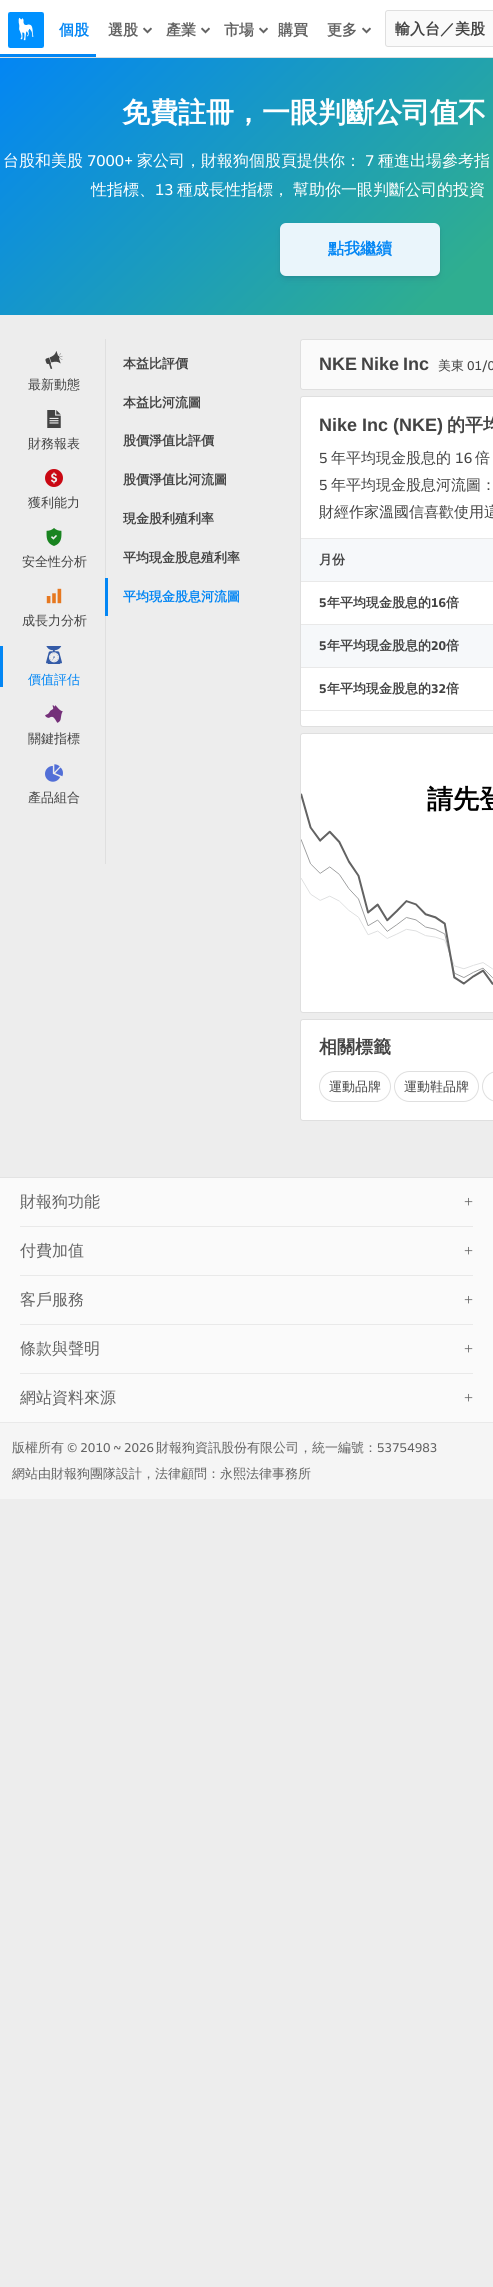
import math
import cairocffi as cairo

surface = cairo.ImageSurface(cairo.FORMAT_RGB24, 493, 2287)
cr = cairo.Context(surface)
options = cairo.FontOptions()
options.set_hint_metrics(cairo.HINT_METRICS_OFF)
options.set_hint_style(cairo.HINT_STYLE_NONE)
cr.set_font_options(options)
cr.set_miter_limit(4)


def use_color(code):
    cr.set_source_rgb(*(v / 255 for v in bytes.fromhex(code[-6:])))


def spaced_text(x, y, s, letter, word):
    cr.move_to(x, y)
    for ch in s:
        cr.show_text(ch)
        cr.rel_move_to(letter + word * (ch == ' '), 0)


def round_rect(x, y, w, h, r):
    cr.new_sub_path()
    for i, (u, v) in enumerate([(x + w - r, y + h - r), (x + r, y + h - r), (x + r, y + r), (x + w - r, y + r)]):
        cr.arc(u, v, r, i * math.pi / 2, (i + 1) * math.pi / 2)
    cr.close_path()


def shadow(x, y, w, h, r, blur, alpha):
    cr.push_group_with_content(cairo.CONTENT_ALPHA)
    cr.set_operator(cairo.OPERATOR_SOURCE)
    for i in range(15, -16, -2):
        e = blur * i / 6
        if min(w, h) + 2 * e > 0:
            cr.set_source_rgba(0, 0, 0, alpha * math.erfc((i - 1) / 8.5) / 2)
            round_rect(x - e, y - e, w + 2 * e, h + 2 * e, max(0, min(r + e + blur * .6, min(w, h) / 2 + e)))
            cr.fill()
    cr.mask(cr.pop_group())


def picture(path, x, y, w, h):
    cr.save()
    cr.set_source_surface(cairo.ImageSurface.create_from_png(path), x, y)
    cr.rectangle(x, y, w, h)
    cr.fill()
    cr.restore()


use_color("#ededed")
cr.paint()
use_color("#ffffff")
cr.rectangle(0, 0, 493, 57)
cr.fill()
use_color("#dfdfdf")
cr.rectangle(0, 57, 493, 1)
cr.fill()
use_color("#0386f4")
cr.rectangle(0, 54, 96, 3)
cr.fill()
picture("img1.png", 8, 12, 36, 36)
cr.select_font_face("WenQuanYi Zen Hei", cairo.FONT_SLANT_NORMAL, cairo.FONT_WEIGHT_BOLD)
cr.set_font_size(15)
use_color("#636363")
cr.move_to(108, 35)
cr.show_text("選股")
picture("img2.png", 143, 27, 9, 7)
cr.move_to(166, 35)
cr.show_text("產業")
picture("img2.png", 201, 27, 9, 7)
cr.move_to(224, 35)
cr.show_text("市場")
picture("img2.png", 259, 27, 9, 7)
cr.move_to(278, 35)
cr.show_text("購買")
cr.move_to(327, 35)
cr.show_text("更多")
picture("img2.png", 362, 27, 9, 7)
use_color("#0386f4")
cr.move_to(59, 35)
cr.show_text("個股")
use_color("#fafafa")
round_rect(385.5, 10.5, 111, 36, 2.5)
cr.fill_preserve()
use_color("#dfdfdf")
cr.set_line_width(1)
cr.stroke()
use_color("#434343")
cr.move_to(395, 34)
cr.show_text("輸入台／美股")
gradient = cairo.LinearGradient(63, -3.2, 430, 376)
gradient.add_color_stop_rgba(0, 0.012, 0.525, 0.957, 1)
gradient.add_color_stop_rgba(0.9, 0.184, 0.682, 0.565, 1)
cr.set_source(gradient)
cr.rectangle(0, 58, 493, 257)
cr.fill()
cr.set_font_size(28)
use_color("#ffffff")
cr.move_to(122, 122)
cr.show_text("免費註冊，一眼判斷公司值不")
cr.select_font_face("WenQuanYi Zen Hei Medium")
cr.set_font_size(16)
cr.move_to(3, 166)
cr.show_text("台股和美股")
cr.select_font_face("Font")
cr.move_to(87, 166)
cr.show_text("7000+")
cr.select_font_face("WenQuanYi Zen Hei Medium")
cr.move_to(137, 166)
cr.show_text("家公司，財報狗個股頁提供你：")
cr.select_font_face("Font")
cr.move_to(365, 166)
cr.show_text("7")
cr.select_font_face("WenQuanYi Zen Hei Medium")
cr.move_to(378, 166)
cr.show_text("種進出場參考指")
cr.move_to(91, 195)
cr.show_text("性指標、")
cr.select_font_face("Font")
cr.move_to(155, 195)
cr.show_text("13")
cr.select_font_face("WenQuanYi Zen Hei Medium")
cr.move_to(177, 195)
cr.show_text("種成長性指標，")
cr.move_to(293, 195)
cr.show_text("幫助你一眼判斷公司的投資")
use_color("#000000")
shadow(280, 224, 160, 53, 6, 1.5, 0.08)
use_color("#32325d")
shadow(280, 227, 160, 53, 6, 3, 0.11)
use_color("#eaf5fb")
round_rect(280, 223, 160, 53, 6)
cr.fill()
cr.select_font_face("WenQuanYi Zen Hei", cairo.FONT_SLANT_NORMAL, cairo.FONT_WEIGHT_BOLD)
use_color("#0386f4")
cr.move_to(328, 254)
cr.show_text("點我繼續")
picture("img3.png", 45, 351, 18, 18)
cr.select_font_face("WenQuanYi Zen Hei Medium")
cr.set_font_size(13)
use_color("#434343")
cr.move_to(28, 389)
cr.show_text("最新動態")
picture("img4.png", 47, 410, 14, 18)
cr.move_to(28, 448)
cr.show_text("財務報表")
picture("img5.png", 45, 469, 18, 18)
cr.move_to(28, 507)
cr.show_text("獲利能力")
picture("img6.png", 46, 528, 16, 18)
cr.move_to(22, 566)
cr.show_text("安全性分析")
picture("img7.png", 46, 588, 16, 16)
cr.move_to(22, 625)
cr.show_text("成長力分析")
use_color("#0386f4")
cr.rectangle(0, 646, 3, 41)
cr.fill()
picture("img8.png", 46, 646, 16, 18)
cr.move_to(28, 684)
cr.show_text("價值評估")
picture("img9.png", 45, 705, 18, 18)
use_color("#434343")
cr.move_to(28, 743)
cr.show_text("關鍵指標")
picture("img10.png", 45, 764, 18, 18)
cr.move_to(28, 802)
cr.show_text("產品組合")
use_color("#dfdfdf")
cr.rectangle(105, 339, 1, 525)
cr.fill()
cr.select_font_face("WenQuanYi Zen Hei", cairo.FONT_SLANT_NORMAL, cairo.FONT_WEIGHT_BOLD)
use_color("#434343")
cr.move_to(123, 368)
cr.show_text("本益比評價")
cr.move_to(123, 407)
cr.show_text("本益比河流圖")
cr.move_to(123, 445)
cr.show_text("股價淨值比評價")
cr.move_to(123, 484)
cr.show_text("股價淨值比河流圖")
cr.move_to(123, 523)
cr.show_text("現金股利殖利率")
cr.move_to(123, 562)
cr.show_text("平均現金股息殖利率")
use_color("#0386f4")
cr.rectangle(105, 578, 3, 38)
cr.fill()
cr.move_to(123, 601)
cr.show_text("平均現金股息河流圖")
use_color("#fafafa")
round_rect(300.5, 339.5, 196, 50, 2.5)
cr.fill_preserve()
use_color("#dfdfdf")
cr.stroke()
cr.select_font_face("Liberation Sans", cairo.FONT_SLANT_NORMAL, cairo.FONT_WEIGHT_BOLD)
cr.set_font_size(18)
use_color("#434343")
spaced_text(319, 370, "NKE Nike Inc", 0, -1)
cr.select_font_face("WenQuanYi Zen Hei Medium")
cr.set_font_size(13)
cr.move_to(438, 370)
cr.show_text("美東")
cr.select_font_face("Font")
cr.move_to(467, 370)
cr.show_text("01/0")
use_color("#ffffff")
round_rect(300.5, 396.5, 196, 330, 2.5)
cr.fill_preserve()
use_color("#dfdfdf")
cr.stroke()
cr.select_font_face("Liberation Sans", cairo.FONT_SLANT_NORMAL, cairo.FONT_WEIGHT_BOLD)
cr.set_font_size(18)
use_color("#434343")
cr.move_to(319, 431)
cr.show_text("Nike Inc (NKE)")
cr.select_font_face("WenQuanYi Zen Hei", cairo.FONT_SLANT_NORMAL, cairo.FONT_WEIGHT_BOLD)
cr.move_to(447, 431)
cr.show_text("的平均")
cr.select_font_face("Font")
cr.set_font_size(15)
cr.move_to(319, 463)
cr.show_text("5")
cr.select_font_face("WenQuanYi Zen Hei Medium")
cr.move_to(331, 463)
cr.show_text("年平均現金股息的")
cr.select_font_face("Font")
cr.move_to(455, 463)
cr.show_text("16")
cr.select_font_face("WenQuanYi Zen Hei Medium")
cr.move_to(475, 463)
cr.show_text("倍")
cr.select_font_face("Font")
cr.move_to(319, 490)
cr.show_text("5")
cr.select_font_face("WenQuanYi Zen Hei Medium")
cr.move_to(331, 490)
cr.show_text("年平均現金股息河流圖：")
cr.move_to(319, 517)
cr.show_text("財經作家溫國信喜歡使用這")
use_color("#f6f8fa")
cr.rectangle(301, 539, 192, 42)
cr.fill()
use_color("#e9e9e9")
cr.rectangle(301, 538, 192, 1)
cr.fill()
cr.select_font_face("WenQuanYi Zen Hei", cairo.FONT_SLANT_NORMAL, cairo.FONT_WEIGHT_BOLD)
cr.set_font_size(13)
use_color("#434343")
cr.move_to(319, 564)
cr.show_text("月份")
use_color("#e9e9e9")
cr.rectangle(301, 581, 192, 1)
cr.fill()
cr.select_font_face("Font", cairo.FONT_SLANT_NORMAL, cairo.FONT_WEIGHT_BOLD)
use_color("#434343")
cr.move_to(319, 607)
cr.show_text("5")
cr.select_font_face("WenQuanYi Zen Hei", cairo.FONT_SLANT_NORMAL, cairo.FONT_WEIGHT_BOLD)
cr.move_to(327, 607)
cr.show_text("年平均現金股息的")
cr.select_font_face("Font", cairo.FONT_SLANT_NORMAL, cairo.FONT_WEIGHT_BOLD)
cr.move_to(431, 607)
cr.show_text("16")
cr.select_font_face("WenQuanYi Zen Hei", cairo.FONT_SLANT_NORMAL, cairo.FONT_WEIGHT_BOLD)
cr.move_to(446, 607)
cr.show_text("倍")
use_color("#f6f8fa")
cr.rectangle(301, 625, 192, 42)
cr.fill()
use_color("#e9e9e9")
cr.rectangle(301, 624, 192, 1)
cr.fill()
cr.select_font_face("Font", cairo.FONT_SLANT_NORMAL, cairo.FONT_WEIGHT_BOLD)
use_color("#434343")
cr.move_to(319, 650)
cr.show_text("5")
cr.select_font_face("WenQuanYi Zen Hei", cairo.FONT_SLANT_NORMAL, cairo.FONT_WEIGHT_BOLD)
cr.move_to(327, 650)
cr.show_text("年平均現金股息的")
cr.select_font_face("Font", cairo.FONT_SLANT_NORMAL, cairo.FONT_WEIGHT_BOLD)
cr.move_to(431, 650)
cr.show_text("20")
cr.select_font_face("WenQuanYi Zen Hei", cairo.FONT_SLANT_NORMAL, cairo.FONT_WEIGHT_BOLD)
cr.move_to(446, 650)
cr.show_text("倍")
use_color("#e9e9e9")
cr.rectangle(301, 667, 192, 1)
cr.fill()
cr.rectangle(301, 710, 192, 1)
cr.fill()
cr.select_font_face("Font", cairo.FONT_SLANT_NORMAL, cairo.FONT_WEIGHT_BOLD)
use_color("#434343")
cr.move_to(319, 693)
cr.show_text("5")
cr.select_font_face("WenQuanYi Zen Hei", cairo.FONT_SLANT_NORMAL, cairo.FONT_WEIGHT_BOLD)
cr.move_to(327, 693)
cr.show_text("年平均現金股息的")
cr.select_font_face("Font", cairo.FONT_SLANT_NORMAL, cairo.FONT_WEIGHT_BOLD)
cr.move_to(431, 693)
cr.show_text("32")
cr.select_font_face("WenQuanYi Zen Hei", cairo.FONT_SLANT_NORMAL, cairo.FONT_WEIGHT_BOLD)
cr.move_to(446, 693)
cr.show_text("倍")
use_color("#ffffff")
round_rect(300.5, 733.5, 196, 279, 2.5)
cr.fill_preserve()
use_color("#dfdfdf")
cr.stroke()
picture("img11.png", 301, 793, 192, 192)
cr.set_font_size(26)
use_color("#000000")
cr.move_to(427, 808)
cr.show_text("請先登")
use_color("#ffffff")
round_rect(300.5, 1019.5, 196, 101, 2.5)
cr.fill_preserve()
use_color("#dfdfdf")
cr.stroke()
cr.set_font_size(18)
use_color("#434343")
cr.move_to(319, 1053)
cr.show_text("相關標籤")
round_rect(319.5, 1071.5, 71, 30, 15)
use_color("#dfdfdf")
cr.stroke()
cr.select_font_face("WenQuanYi Zen Hei Medium")
cr.set_font_size(13)
use_color("#434343")
cr.move_to(329, 1091)
cr.show_text("運動品牌")
round_rect(394.5, 1071.5, 84, 30, 15)
use_color("#dfdfdf")
cr.stroke()
use_color("#434343")
cr.move_to(404, 1091)
cr.show_text("運動鞋品牌")
round_rect(482.5, 1071.5, 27, 30, 15)
use_color("#dfdfdf")
cr.stroke()
use_color("#fafafa")
cr.rectangle(0, 1178, 493, 244)
cr.fill()
use_color("#e3e3e3")
cr.rectangle(0, 1177, 493, 1)
cr.fill()
use_color("#e9e9e9")
cr.rectangle(20, 1226, 453, 1)
cr.fill()
cr.set_font_size(16)
use_color("#636363")
cr.move_to(20, 1207)
cr.show_text("財報狗功能")
cr.select_font_face("Liberation Serif")
cr.move_to(464, 1207)
cr.show_text("+")
use_color("#e9e9e9")
cr.rectangle(20, 1275, 453, 1)
cr.fill()
cr.select_font_face("WenQuanYi Zen Hei Medium")
use_color("#636363")
cr.move_to(20, 1256)
cr.show_text("付費加值")
cr.select_font_face("Liberation Serif")
cr.move_to(464, 1256)
cr.show_text("+")
use_color("#e9e9e9")
cr.rectangle(20, 1324, 453, 1)
cr.fill()
cr.select_font_face("WenQuanYi Zen Hei Medium")
use_color("#636363")
cr.move_to(20, 1305)
cr.show_text("客戶服務")
cr.select_font_face("Liberation Serif")
cr.move_to(464, 1305)
cr.show_text("+")
use_color("#e9e9e9")
cr.rectangle(20, 1373, 453, 1)
cr.fill()
cr.select_font_face("WenQuanYi Zen Hei Medium")
use_color("#636363")
cr.move_to(20, 1354)
cr.show_text("條款與聲明")
cr.select_font_face("Liberation Serif")
cr.move_to(464, 1354)
cr.show_text("+")
cr.select_font_face("WenQuanYi Zen Hei Medium")
cr.move_to(20, 1403)
cr.show_text("網站資料來源")
cr.select_font_face("Liberation Serif")
cr.move_to(464, 1403)
cr.show_text("+")
use_color("#f5f5f5")
cr.rectangle(0, 1423, 493, 76)
cr.fill()
use_color("#e9e9e9")
cr.rectangle(0, 1422, 493, 1)
cr.fill()
cr.select_font_face("WenQuanYi Zen Hei Medium")
cr.set_font_size(13)
use_color("#636363")
cr.move_to(12, 1452)
cr.show_text("版權所有")
cr.select_font_face("Font")
cr.move_to(67, 1452)
cr.show_text("© 2010 ~ 2026")
cr.select_font_face("WenQuanYi Zen Hei Medium")
cr.move_to(156, 1452)
cr.show_text("財報狗資訊股份有限公司，統一編號：")
cr.select_font_face("Font")
cr.move_to(377, 1452)
cr.show_text("53754983")
cr.select_font_face("WenQuanYi Zen Hei Medium")
cr.move_to(12, 1478)
cr.show_text("網站由財報狗團隊設計，法律顧問：永熙法律事務所")
surface.write_to_png("result.png")
